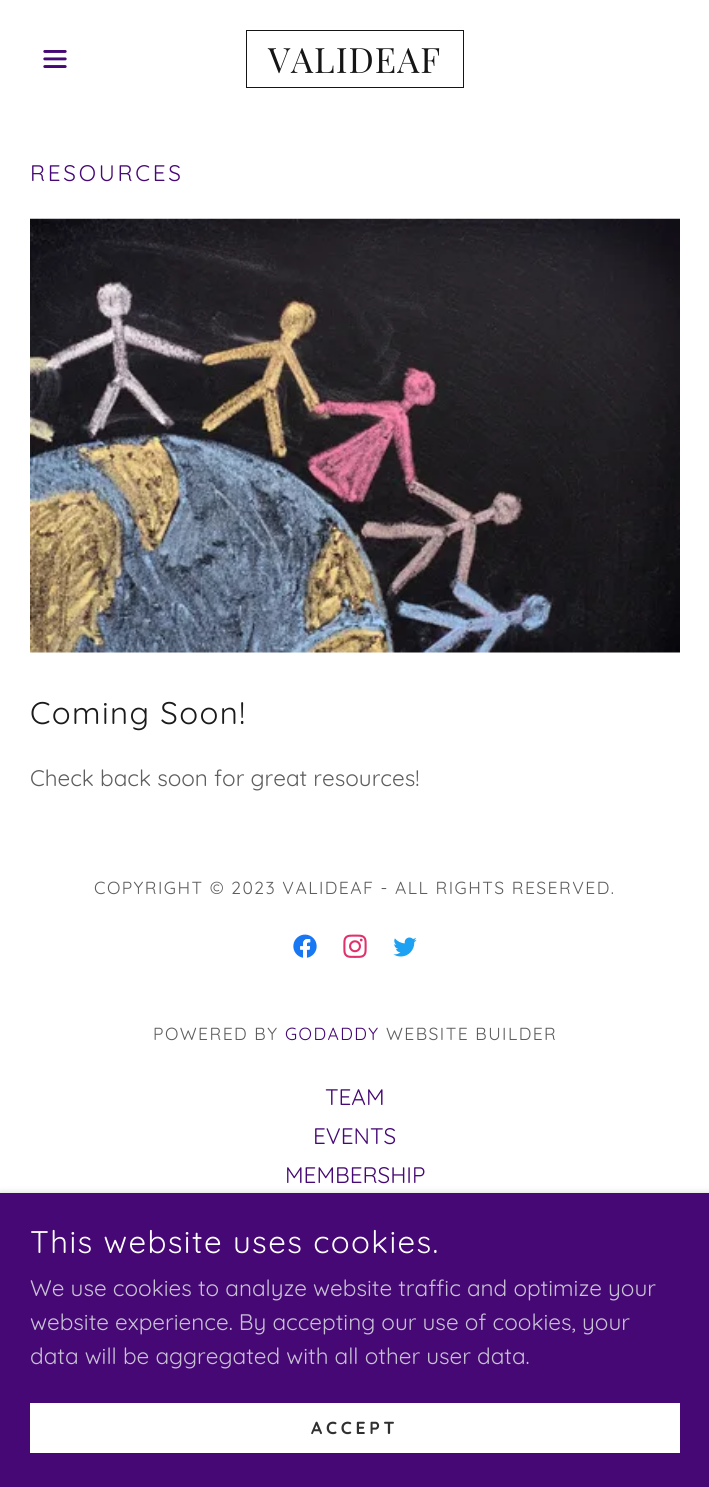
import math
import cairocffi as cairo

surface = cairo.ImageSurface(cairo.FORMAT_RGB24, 709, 1487)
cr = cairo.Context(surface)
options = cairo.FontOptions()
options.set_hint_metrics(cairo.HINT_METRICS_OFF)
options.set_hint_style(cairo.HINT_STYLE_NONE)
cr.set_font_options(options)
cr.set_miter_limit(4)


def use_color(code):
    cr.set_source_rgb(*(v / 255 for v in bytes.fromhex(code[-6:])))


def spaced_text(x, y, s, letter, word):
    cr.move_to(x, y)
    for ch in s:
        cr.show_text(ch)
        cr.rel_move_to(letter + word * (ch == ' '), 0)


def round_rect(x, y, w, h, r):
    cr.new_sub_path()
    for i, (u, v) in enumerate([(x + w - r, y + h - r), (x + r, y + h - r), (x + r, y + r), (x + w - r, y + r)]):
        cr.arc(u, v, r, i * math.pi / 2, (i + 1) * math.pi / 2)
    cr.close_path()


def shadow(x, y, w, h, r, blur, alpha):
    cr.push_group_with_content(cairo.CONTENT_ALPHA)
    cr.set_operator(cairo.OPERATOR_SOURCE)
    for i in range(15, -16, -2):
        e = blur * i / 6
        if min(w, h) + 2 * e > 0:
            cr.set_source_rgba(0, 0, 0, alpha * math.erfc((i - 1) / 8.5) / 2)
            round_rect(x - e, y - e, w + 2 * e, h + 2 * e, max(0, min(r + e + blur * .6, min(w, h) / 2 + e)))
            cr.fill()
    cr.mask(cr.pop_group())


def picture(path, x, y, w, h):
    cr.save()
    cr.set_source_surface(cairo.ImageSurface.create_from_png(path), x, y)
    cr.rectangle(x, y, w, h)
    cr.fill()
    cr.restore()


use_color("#ffffff")
cr.paint()
picture("img1.png", 43, 50, 24, 18)
cr.rectangle(246.5, 30.5, 217, 57)
use_color("#151515")
cr.set_line_width(1)
cr.stroke()
cr.select_font_face("Playfair Display")
cr.set_font_size(35)
spaced_text(268, 73, "VALIDEAF", 1, 0)
cr.select_font_face("Quicksand")
cr.set_font_size(22.5)
use_color("#460874")
spaced_text(30, 181, "RESOURCES", 2.75, 0)
picture("img2.png", 30, 218, 650, 435)
cr.set_font_size(31.25)
use_color("#1b1b1b")
spaced_text(30, 724, "Coming Soon!", 1.4, 0)
cr.set_font_size(22.5)
use_color("#5e5e5e")
cr.move_to(30, 786)
cr.show_text("Check back soon for great resources!")
cr.set_font_size(17.5)
spaced_text(94, 894, "COPYRIGHT © 2023 VALIDEAF - ALL RIGHTS RESERVED.", 1.45, 0)
picture("img3.png", 293, 934, 24, 24)
picture("img4.png", 343, 934, 24, 24)
picture("img5.png", 393, 937, 24, 20)
spaced_text(153, 1040, "POWERED BY", 1.45, 0)
use_color("#460874")
spaced_text(285, 1040, "GODADDY", 1.45, 0)
use_color("#5e5e5e")
spaced_text(386, 1040, "WEBSITE BUILDER", 1.45, 0)
cr.set_font_size(22.5)
use_color("#460874")
cr.move_to(325, 1105)
cr.show_text("TEAM")
cr.move_to(313, 1144)
cr.show_text("EVENTS")
cr.move_to(285, 1183)
cr.show_text("MEMBERSHIP")
use_color("#000000")
shadow(0, 1195, 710, 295, 0, 4, 0.3)
use_color("#460874")
cr.rectangle(0, 1193, 709, 294)
cr.fill()
cr.set_font_size(31.25)
use_color("#ffffff")
spaced_text(30, 1253, "This website uses cookies.", 1.4, 0)
cr.set_font_size(22.5)
use_color("#c7c1d3")
cr.move_to(30, 1296)
cr.show_text("We use cookies to analyze website traffic and optimize your")
cr.move_to(30, 1330)
cr.show_text("website experience. By accepting our use of cookies, your")
cr.move_to(30, 1364)
cr.show_text("data will be aggregated with all other user data.")
use_color("#ffffff")
cr.rectangle(30, 1403, 650, 50)
cr.fill()
cr.select_font_face("Quicksand", cairo.FONT_SLANT_NORMAL, cairo.FONT_WEIGHT_BOLD)
cr.set_font_size(17.5)
use_color("#303030")
spaced_text(311, 1434, "ACCEPT", 3.75, 0)
surface.write_to_png("result.png")
